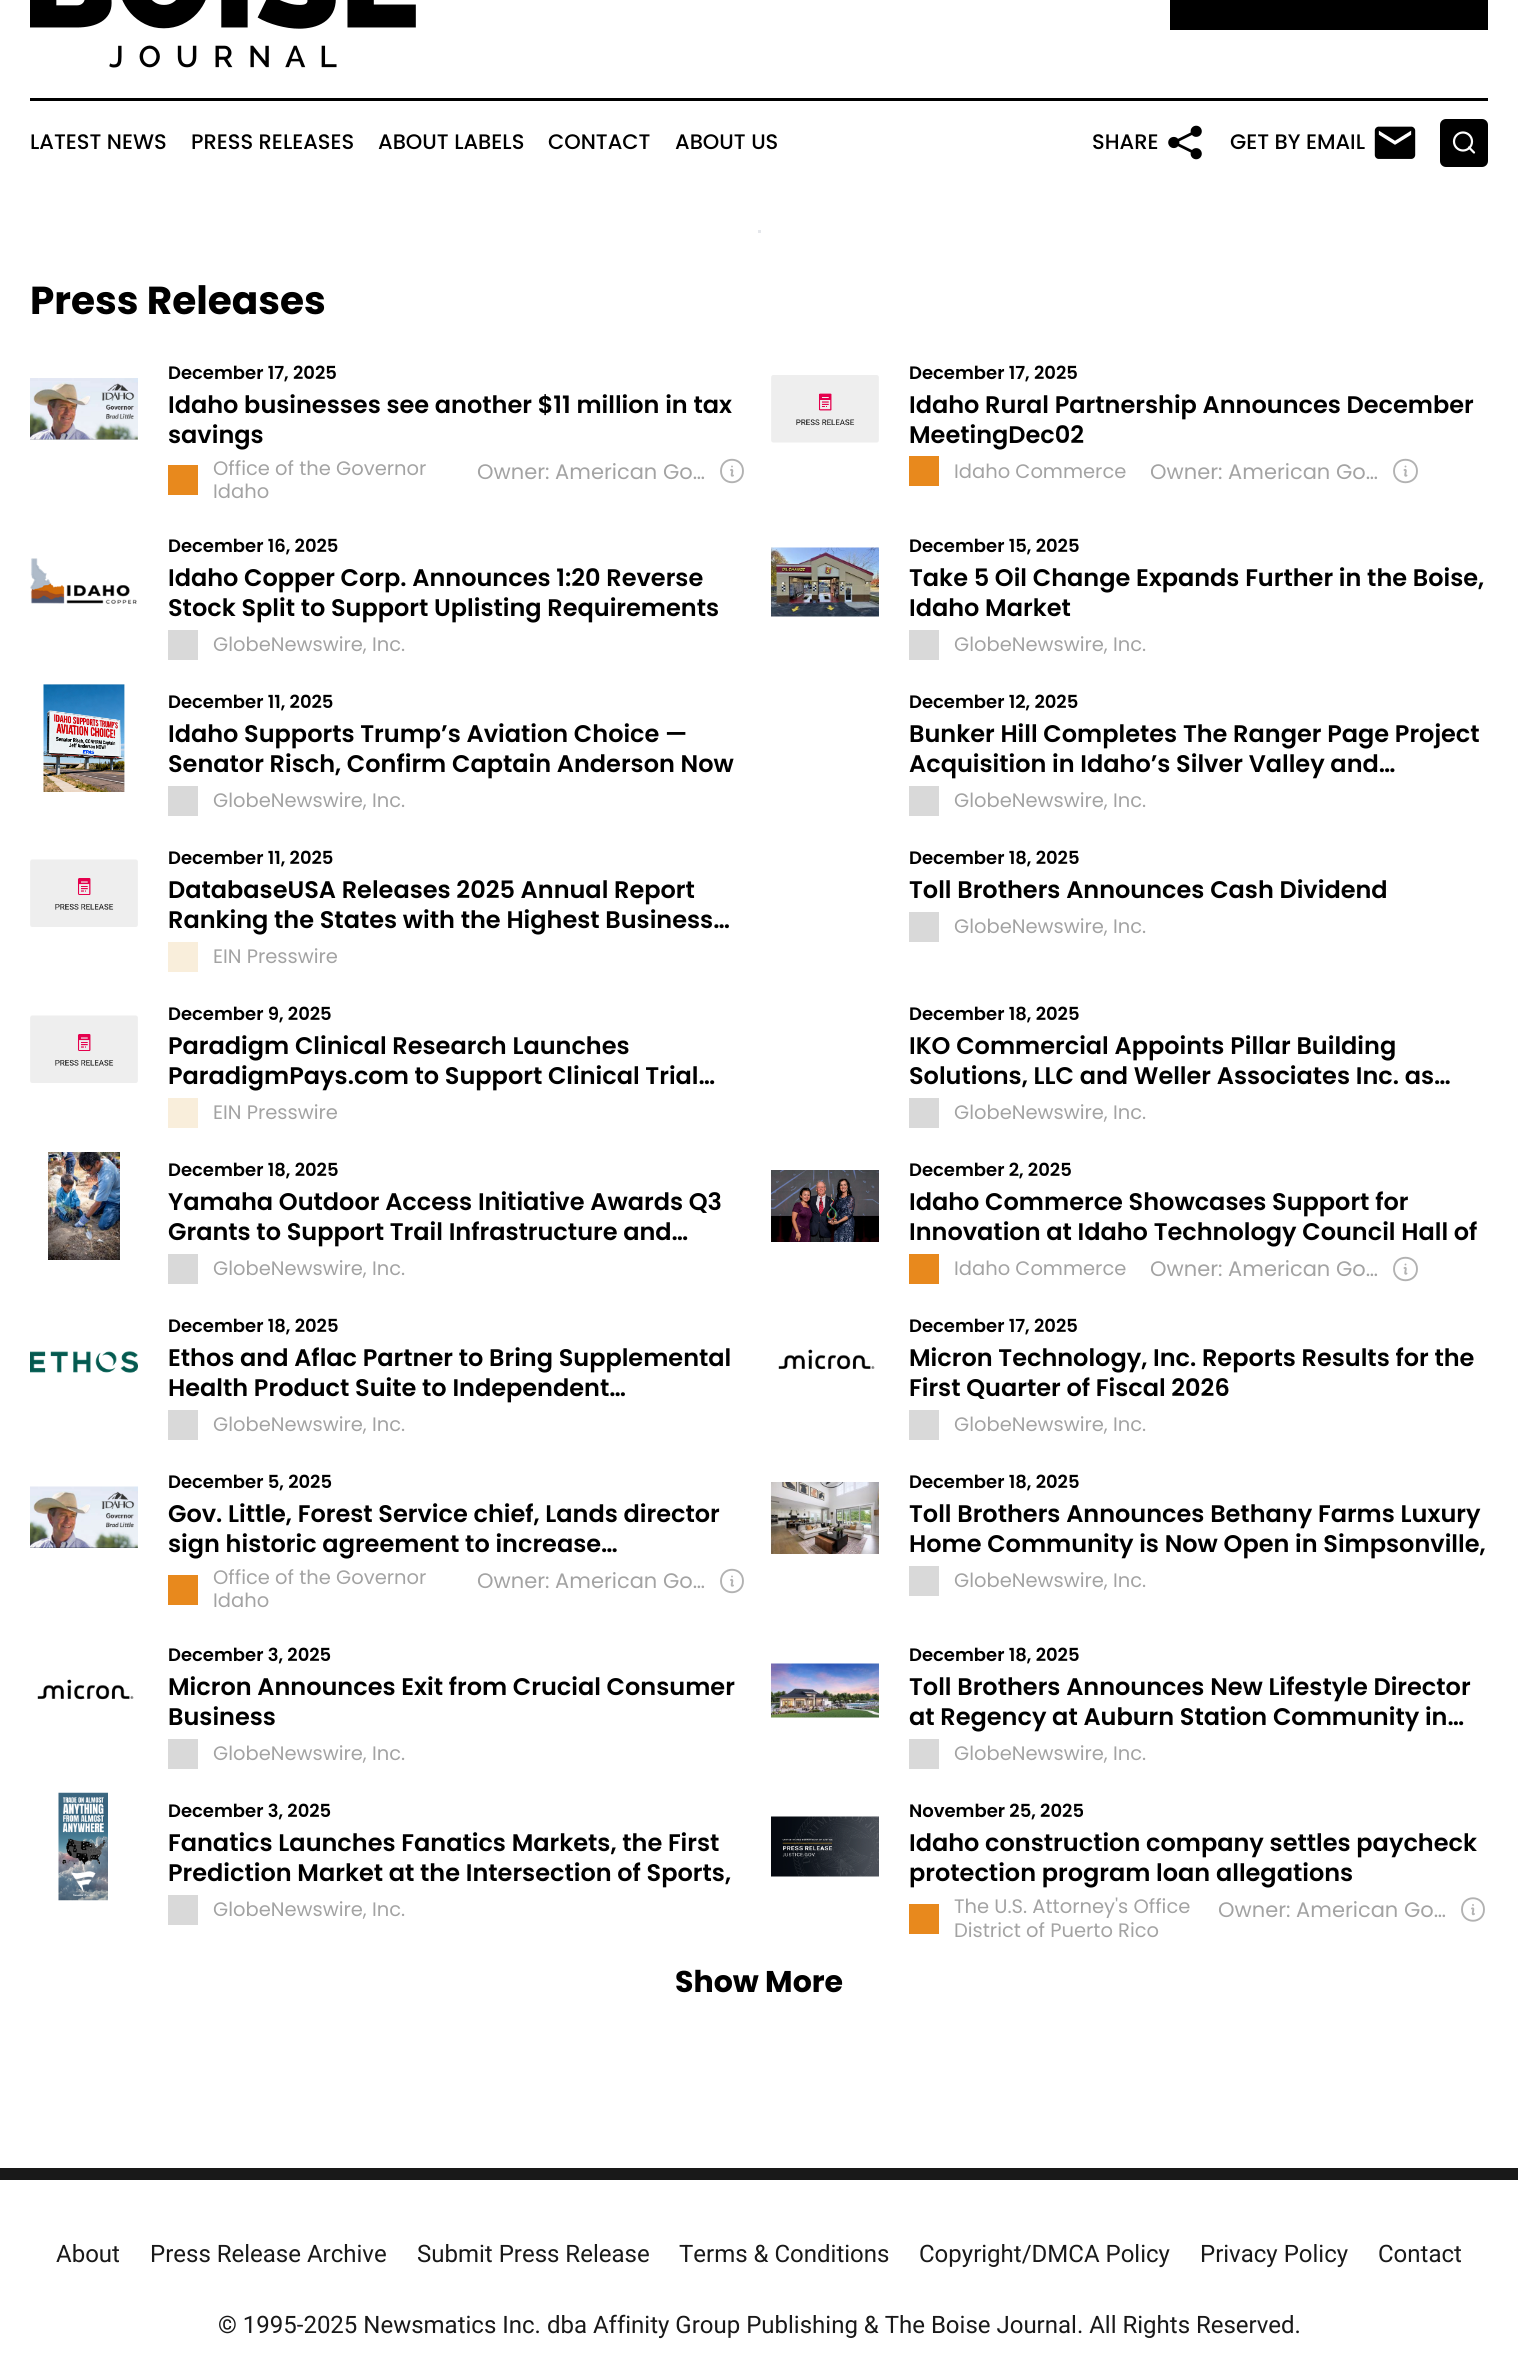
import math
import cairocffi as cairo

surface = cairo.ImageSurface(cairo.FORMAT_RGB24, 1518, 2361)
cr = cairo.Context(surface)
options = cairo.FontOptions()
options.set_hint_metrics(cairo.HINT_METRICS_OFF)
options.set_hint_style(cairo.HINT_STYLE_NONE)
cr.set_font_options(options)
cr.set_miter_limit(4)


def use_color(code):
    cr.set_source_rgb(*(v / 255 for v in bytes.fromhex(code[-6:])))


def round_rect(x, y, w, h, r):
    cr.new_sub_path()
    for i, (u, v) in enumerate([(x + w - r, y + h - r), (x + r, y + h - r), (x + r, y + r), (x + w - r, y + r)]):
        cr.arc(u, v, r, i * math.pi / 2, (i + 1) * math.pi / 2)
    cr.close_path()


def picture(path, x, y, w, h):
    cr.save()
    cr.set_source_surface(cairo.ImageSurface.create_from_png(path), x, y)
    cr.rectangle(x, y, w, h)
    cr.fill()
    cr.restore()


use_color("#ffffff")
cr.paint()
picture("img1.png", 30, 0, 386, 68)
use_color("#000000")
cr.rectangle(1170, 0, 318, 30)
cr.fill()
cr.rectangle(30, 98, 1458, 3)
cr.fill()
cr.select_font_face("Poppins Medium")
cr.set_font_size(21)
cr.move_to(30, 149)
cr.show_text("LATEST NEWS")
cr.move_to(191, 149)
cr.show_text("PRESS RELEASES")
cr.move_to(378, 149)
cr.show_text("ABOUT LABELS")
cr.move_to(548, 149)
cr.show_text("CONTACT")
cr.move_to(675, 149)
cr.show_text("ABOUT US")
cr.move_to(1092, 149)
cr.show_text("SHARE")
picture("img2.png", 1168, 125, 34, 35)
cr.move_to(1230, 149)
cr.show_text("GET BY EMAIL")
picture("img3.png", 1374, 126, 42, 33)
round_rect(1440, 119, 48, 48, 6)
cr.fill()
cr.arc(1463, 141.5, 9, 0, 2 * math.pi)
use_color("#ffffff")
cr.set_line_width(2.2)
cr.stroke()
cr.new_path()
cr.move_to(1474, 152.5)
cr.line_to(1469, 147.5)
cr.set_line_cap(cairo.LINE_CAP_ROUND)
cr.set_line_join(cairo.LINE_JOIN_ROUND)
cr.stroke()
use_color("#e5e7eb")
cr.rectangle(758, 230, 3, 3)
cr.fill()
cr.select_font_face("Poppins", cairo.FONT_SLANT_NORMAL, cairo.FONT_WEIGHT_BOLD)
cr.set_font_size(39)
use_color("#000000")
cr.move_to(30, 314)
cr.show_text("Press Releases")
picture("img4.png", 30, 378, 108, 62)
cr.select_font_face("Poppins SemiBold")
cr.set_font_size(18)
cr.move_to(168, 379)
cr.show_text("December 17, 2025")
cr.set_font_size(24)
cr.move_to(168, 413)
cr.show_text("Idaho businesses see another $11 million in tax")
cr.move_to(168, 443)
cr.show_text("savings")
use_color("#e8891d")
cr.rectangle(168, 465, 30, 30)
cr.fill()
cr.select_font_face("Poppins")
cr.set_font_size(19.5)
use_color("#a3a3a3")
cr.move_to(213, 475)
cr.show_text("Office of the Governor")
cr.move_to(213, 498)
cr.show_text("Idaho")
cr.set_font_size(21)
cr.move_to(477, 479)
cr.show_text("Owner: American Go…")
cr.new_path()
cr.move_to(731, 470)
cr.curve_to(734.5, 468.5, 729.5, 477.5, 733, 475.5)
cr.move_to(743, 471)
cr.curve_to(743, 486, 721, 486, 721, 471)
cr.curve_to(721, 456, 743, 456, 743, 471)
cr.close_path()
cr.move_to(732, 466.5)
cr.line_to(732, 466.5)
cr.close_path()
use_color("#b2b2b2")
cr.set_line_width(1.9)
cr.stroke()
picture("img5.png", 771, 375, 108, 68)
cr.select_font_face("Poppins SemiBold")
cr.set_font_size(18)
use_color("#000000")
cr.move_to(909, 379)
cr.show_text("December 17, 2025")
cr.set_font_size(24)
cr.move_to(909, 413)
cr.show_text("Idaho Rural Partnership Announces December")
cr.move_to(909, 443)
cr.show_text("MeetingDec02")
use_color("#e8891d")
cr.rectangle(909, 456, 30, 30)
cr.fill()
cr.select_font_face("Poppins")
cr.set_font_size(19.5)
use_color("#a3a3a3")
cr.move_to(954, 478)
cr.show_text("Idaho Commerce")
cr.save()
cr.rectangle(1151, 456, 231, 30)
cr.clip()
cr.set_font_size(21)
cr.move_to(1150, 479)
cr.show_text("Owner: American Go…")
cr.restore()
cr.new_path()
cr.move_to(1404.5, 470)
cr.curve_to(1408, 468.5, 1403, 477.5, 1406.5, 475.5)
cr.move_to(1417, 471)
cr.curve_to(1417, 486, 1394, 486, 1394, 471)
cr.curve_to(1394, 456, 1417, 456, 1417, 471)
cr.close_path()
cr.move_to(1405.5, 466.5)
cr.line_to(1405.5, 466.5)
cr.close_path()
use_color("#b2b2b2")
cr.stroke()
picture("img6.png", 30, 558, 107, 46)
cr.select_font_face("Poppins SemiBold")
cr.set_font_size(18)
use_color("#000000")
cr.move_to(168, 552)
cr.show_text("December 16, 2025")
cr.set_font_size(24)
cr.move_to(168, 586)
cr.show_text("Idaho Copper Corp. Announces 1:20 Reverse")
cr.move_to(168, 616)
cr.show_text("Stock Split to Support Uplisting Requirements")
use_color("#d9d9d9")
cr.rectangle(168, 630, 30, 30)
cr.fill()
cr.select_font_face("Poppins")
cr.set_font_size(19.5)
use_color("#a3a3a3")
cr.move_to(213, 651)
cr.show_text("GlobeNewswire, Inc.")
picture("img7.png", 771, 547, 108, 70)
cr.select_font_face("Poppins SemiBold")
cr.set_font_size(18)
use_color("#000000")
cr.move_to(909, 552)
cr.show_text("December 15, 2025")
cr.set_font_size(24)
cr.move_to(909, 586)
cr.show_text("Take 5 Oil Change Expands Further in the Boise,")
cr.move_to(909, 616)
cr.show_text("Idaho Market")
use_color("#d9d9d9")
cr.rectangle(909, 630, 30, 30)
cr.fill()
cr.select_font_face("Poppins")
cr.set_font_size(19.5)
use_color("#a3a3a3")
cr.move_to(954, 651)
cr.show_text("GlobeNewswire, Inc.")
picture("img8.png", 43, 684, 82, 108)
cr.select_font_face("Poppins SemiBold")
cr.set_font_size(18)
use_color("#000000")
cr.move_to(168, 708)
cr.show_text("December 11, 2025")
cr.set_font_size(24)
cr.move_to(168, 742)
cr.show_text("Idaho Supports Trump’s Aviation Choice —")
cr.move_to(168, 772)
cr.show_text("Senator Risch, Confirm Captain Anderson Now")
use_color("#d9d9d9")
cr.rectangle(168, 786, 30, 30)
cr.fill()
cr.select_font_face("Poppins")
cr.set_font_size(19.5)
use_color("#a3a3a3")
cr.move_to(213, 807)
cr.show_text("GlobeNewswire, Inc.")
cr.select_font_face("Poppins SemiBold")
cr.set_font_size(18)
use_color("#000000")
cr.move_to(909, 708)
cr.show_text("December 12, 2025")
cr.set_font_size(24)
cr.move_to(909, 742)
cr.show_text("Bunker Hill Completes The Ranger Page Project")
cr.move_to(909, 772)
cr.show_text("Acquisition in Idaho’s Silver Valley and…")
use_color("#d9d9d9")
cr.rectangle(909, 786, 30, 30)
cr.fill()
cr.select_font_face("Poppins")
cr.set_font_size(19.5)
use_color("#a3a3a3")
cr.move_to(954, 807)
cr.show_text("GlobeNewswire, Inc.")
picture("img9.png", 30, 859, 108, 68)
cr.select_font_face("Poppins SemiBold")
cr.set_font_size(18)
use_color("#000000")
cr.move_to(168, 864)
cr.show_text("December 11, 2025")
cr.set_font_size(24)
cr.move_to(168, 898)
cr.show_text("DatabaseUSA Releases 2025 Annual Report")
cr.move_to(168, 928)
cr.show_text("Ranking the States with the Highest Business…")
use_color("#f9eedb")
cr.rectangle(168, 942, 30, 30)
cr.fill()
cr.select_font_face("Poppins")
cr.set_font_size(19.5)
use_color("#a3a3a3")
cr.move_to(213, 963)
cr.show_text("EIN Presswire")
cr.select_font_face("Poppins SemiBold")
cr.set_font_size(18)
use_color("#000000")
cr.move_to(909, 864)
cr.show_text("December 18, 2025")
cr.set_font_size(24)
cr.move_to(909, 898)
cr.show_text("Toll Brothers Announces Cash Dividend")
use_color("#d9d9d9")
cr.rectangle(909, 912, 30, 30)
cr.fill()
cr.select_font_face("Poppins")
cr.set_font_size(19.5)
use_color("#a3a3a3")
cr.move_to(954, 933)
cr.show_text("GlobeNewswire, Inc.")
picture("img9.png", 30, 1015, 108, 68)
cr.select_font_face("Poppins SemiBold")
cr.set_font_size(18)
use_color("#000000")
cr.move_to(168, 1020)
cr.show_text("December 9, 2025")
cr.set_font_size(24)
cr.move_to(168, 1054)
cr.show_text("Paradigm Clinical Research Launches")
cr.move_to(168, 1084)
cr.show_text("ParadigmPays.com to Support Clinical Trial…")
use_color("#f9eedb")
cr.rectangle(168, 1098, 30, 30)
cr.fill()
cr.select_font_face("Poppins")
cr.set_font_size(19.5)
use_color("#a3a3a3")
cr.move_to(213, 1119)
cr.show_text("EIN Presswire")
cr.select_font_face("Poppins SemiBold")
cr.set_font_size(18)
use_color("#000000")
cr.move_to(909, 1020)
cr.show_text("December 18, 2025")
cr.set_font_size(24)
cr.move_to(909, 1054)
cr.show_text("IKO Commercial Appoints Pillar Building")
cr.move_to(909, 1084)
cr.show_text("Solutions, LLC and Weller Associates Inc. as…")
use_color("#d9d9d9")
cr.rectangle(909, 1098, 30, 30)
cr.fill()
cr.select_font_face("Poppins")
cr.set_font_size(19.5)
use_color("#a3a3a3")
cr.move_to(954, 1119)
cr.show_text("GlobeNewswire, Inc.")
picture("img10.png", 48, 1152, 72, 108)
cr.select_font_face("Poppins SemiBold")
cr.set_font_size(18)
use_color("#000000")
cr.move_to(168, 1176)
cr.show_text("December 18, 2025")
cr.set_font_size(24)
cr.move_to(168, 1210)
cr.show_text("Yamaha Outdoor Access Initiative Awards Q3")
cr.move_to(168, 1240)
cr.show_text("Grants to Support Trail Infrastructure and…")
use_color("#d9d9d9")
cr.rectangle(168, 1254, 30, 30)
cr.fill()
cr.select_font_face("Poppins")
cr.set_font_size(19.5)
use_color("#a3a3a3")
cr.move_to(213, 1275)
cr.show_text("GlobeNewswire, Inc.")
picture("img11.png", 771, 1170, 108, 72)
cr.select_font_face("Poppins SemiBold")
cr.set_font_size(18)
use_color("#000000")
cr.move_to(909, 1176)
cr.show_text("December 2, 2025")
cr.set_font_size(24)
cr.move_to(909, 1210)
cr.show_text("Idaho Commerce Showcases Support for")
cr.move_to(909, 1240)
cr.show_text("Innovation at Idaho Technology Council Hall of")
use_color("#e8891d")
cr.rectangle(909, 1254, 30, 30)
cr.fill()
cr.select_font_face("Poppins")
cr.set_font_size(19.5)
use_color("#a3a3a3")
cr.move_to(954, 1275)
cr.show_text("Idaho Commerce")
cr.save()
cr.rectangle(1151, 1254, 231, 30)
cr.clip()
cr.set_font_size(21)
cr.move_to(1150, 1276)
cr.show_text("Owner: American Go…")
cr.restore()
cr.new_path()
cr.move_to(1404.5, 1268)
cr.curve_to(1408, 1266.5, 1403, 1275.5, 1406.5, 1273.5)
cr.move_to(1417, 1269)
cr.curve_to(1417, 1284, 1394, 1284, 1394, 1269)
cr.curve_to(1394, 1254, 1417, 1254, 1417, 1269)
cr.close_path()
cr.move_to(1405.5, 1264.5)
cr.line_to(1405.5, 1264.5)
cr.close_path()
use_color("#b2b2b2")
cr.stroke()
picture("img12.png", 30, 1351, 108, 22)
cr.select_font_face("Poppins SemiBold")
cr.set_font_size(18)
use_color("#000000")
cr.move_to(168, 1332)
cr.show_text("December 18, 2025")
cr.set_font_size(24)
cr.move_to(168, 1366)
cr.show_text("Ethos and Aflac Partner to Bring Supplemental")
cr.move_to(168, 1396)
cr.show_text("Health Product Suite to Independent…")
use_color("#d9d9d9")
cr.rectangle(168, 1410, 30, 30)
cr.fill()
cr.select_font_face("Poppins")
cr.set_font_size(19.5)
use_color("#a3a3a3")
cr.move_to(213, 1431)
cr.show_text("GlobeNewswire, Inc.")
picture("img13.png", 778, 1349, 97, 21)
cr.select_font_face("Poppins SemiBold")
cr.set_font_size(18)
use_color("#000000")
cr.move_to(909, 1332)
cr.show_text("December 17, 2025")
cr.set_font_size(24)
cr.move_to(909, 1366)
cr.show_text("Micron Technology, Inc. Reports Results for the")
cr.move_to(909, 1396)
cr.show_text("First Quarter of Fiscal 2026")
use_color("#d9d9d9")
cr.rectangle(909, 1410, 30, 30)
cr.fill()
cr.select_font_face("Poppins")
cr.set_font_size(19.5)
use_color("#a3a3a3")
cr.move_to(954, 1431)
cr.show_text("GlobeNewswire, Inc.")
picture("img14.png", 30, 1486, 108, 62)
cr.select_font_face("Poppins SemiBold")
cr.set_font_size(18)
use_color("#000000")
cr.move_to(168, 1488)
cr.show_text("December 5, 2025")
cr.set_font_size(24)
cr.move_to(168, 1522)
cr.show_text("Gov. Little, Forest Service chief, Lands director")
cr.move_to(168, 1552)
cr.show_text("sign historic agreement to increase…")
use_color("#e8891d")
cr.rectangle(168, 1575, 30, 30)
cr.fill()
cr.select_font_face("Poppins")
cr.set_font_size(19.5)
use_color("#a3a3a3")
cr.move_to(213, 1584)
cr.show_text("Office of the Governor")
cr.move_to(213, 1607)
cr.show_text("Idaho")
cr.set_font_size(21)
cr.move_to(477, 1588)
cr.show_text("Owner: American Go…")
cr.new_path()
cr.move_to(731, 1580)
cr.curve_to(734.5, 1578.5, 729.5, 1587.5, 733, 1585.5)
cr.move_to(743, 1581)
cr.curve_to(743, 1596, 721, 1596, 721, 1581)
cr.curve_to(721, 1566, 743, 1566, 743, 1581)
cr.close_path()
cr.move_to(732, 1576.5)
cr.line_to(732, 1576.5)
cr.close_path()
use_color("#b2b2b2")
cr.stroke()
picture("img15.png", 771, 1482, 108, 72)
cr.select_font_face("Poppins SemiBold")
cr.set_font_size(18)
use_color("#000000")
cr.move_to(909, 1488)
cr.show_text("December 18, 2025")
cr.set_font_size(24)
cr.move_to(909, 1522)
cr.show_text("Toll Brothers Announces Bethany Farms Luxury")
cr.move_to(909, 1552)
cr.show_text("Home Community is Now Open in Simpsonville,")
use_color("#d9d9d9")
cr.rectangle(909, 1566, 30, 30)
cr.fill()
cr.select_font_face("Poppins")
cr.set_font_size(19.5)
use_color("#a3a3a3")
cr.move_to(954, 1587)
cr.show_text("GlobeNewswire, Inc.")
picture("img16.png", 37, 1679, 97, 21)
cr.select_font_face("Poppins SemiBold")
cr.set_font_size(18)
use_color("#000000")
cr.move_to(168, 1661)
cr.show_text("December 3, 2025")
cr.set_font_size(24)
cr.move_to(168, 1695)
cr.show_text("Micron Announces Exit from Crucial Consumer")
cr.move_to(168, 1725)
cr.show_text("Business")
use_color("#d9d9d9")
cr.rectangle(168, 1739, 30, 30)
cr.fill()
cr.select_font_face("Poppins")
cr.set_font_size(19.5)
use_color("#a3a3a3")
cr.move_to(213, 1760)
cr.show_text("GlobeNewswire, Inc.")
picture("img17.png", 771, 1663, 108, 55)
cr.select_font_face("Poppins SemiBold")
cr.set_font_size(18)
use_color("#000000")
cr.move_to(909, 1661)
cr.show_text("December 18, 2025")
cr.set_font_size(24)
cr.move_to(909, 1695)
cr.show_text("Toll Brothers Announces New Lifestyle Director")
cr.move_to(909, 1725)
cr.show_text("at Regency at Auburn Station Community in…")
use_color("#d9d9d9")
cr.rectangle(909, 1739, 30, 30)
cr.fill()
cr.select_font_face("Poppins")
cr.set_font_size(19.5)
use_color("#a3a3a3")
cr.move_to(954, 1760)
cr.show_text("GlobeNewswire, Inc.")
picture("img18.png", 58, 1792, 50, 109)
cr.select_font_face("Poppins SemiBold")
cr.set_font_size(18)
use_color("#000000")
cr.move_to(168, 1817)
cr.show_text("December 3, 2025")
cr.set_font_size(24)
cr.move_to(168, 1851)
cr.show_text("Fanatics Launches Fanatics Markets, the First")
cr.move_to(168, 1881)
cr.show_text("Prediction Market at the Intersection of Sports,")
use_color("#d9d9d9")
cr.rectangle(168, 1895, 30, 30)
cr.fill()
cr.select_font_face("Poppins")
cr.set_font_size(19.5)
use_color("#a3a3a3")
cr.move_to(213, 1916)
cr.show_text("GlobeNewswire, Inc.")
picture("img19.png", 771, 1816, 108, 61)
cr.select_font_face("Poppins SemiBold")
cr.set_font_size(18)
use_color("#000000")
cr.move_to(909, 1817)
cr.show_text("November 25, 2025")
cr.set_font_size(24)
cr.move_to(909, 1851)
cr.show_text("Idaho construction company settles paycheck")
cr.move_to(909, 1881)
cr.show_text("protection program loan allegations")
use_color("#e8891d")
cr.rectangle(909, 1904, 30, 30)
cr.fill()
cr.select_font_face("Poppins")
cr.set_font_size(19.5)
use_color("#a3a3a3")
cr.move_to(954, 1913)
cr.show_text("The U.S. Attorney's Office")
cr.move_to(954, 1937)
cr.show_text("District of Puerto Rico")
cr.set_font_size(21)
cr.move_to(1218, 1917)
cr.show_text("Owner: American Go…")
cr.new_path()
cr.move_to(1472, 1908.5)
cr.curve_to(1475.5, 1907, 1470.5, 1916, 1474, 1914)
cr.move_to(1484, 1909.5)
cr.curve_to(1484, 1924.5, 1462, 1924.5, 1462, 1909.5)
cr.curve_to(1462, 1894.5, 1484, 1894.5, 1484, 1909.5)
cr.close_path()
cr.move_to(1473, 1905)
cr.line_to(1473, 1905)
cr.close_path()
use_color("#b2b2b2")
cr.stroke()
cr.select_font_face("Poppins", cairo.FONT_SLANT_NORMAL, cairo.FONT_WEIGHT_BOLD)
cr.set_font_size(30)
use_color("#000000")
cr.move_to(675, 1992)
cr.show_text("Show More")
use_color("#191919")
cr.rectangle(0, 2168, 1518, 12)
cr.fill()
cr.select_font_face("Roboto")
cr.set_font_size(24)
cr.move_to(56, 2262)
cr.show_text("About")
cr.move_to(150, 2262)
cr.show_text("Press Release Archive")
cr.move_to(417, 2262)
cr.show_text("Submit Press Release")
cr.move_to(679, 2262)
cr.show_text("Terms & Conditions")
cr.move_to(919, 2262)
cr.show_text("Copyright/DMCA Policy")
cr.move_to(1200, 2262)
cr.show_text("Privacy Policy")
cr.move_to(1378, 2262)
cr.show_text("Contact")
cr.move_to(218, 2333)
cr.show_text("© 1995-2025 Newsmatics Inc. dba Affinity Group Publishing & The Boise Journal. All Rights Reserved.")
surface.write_to_png("result.png")
